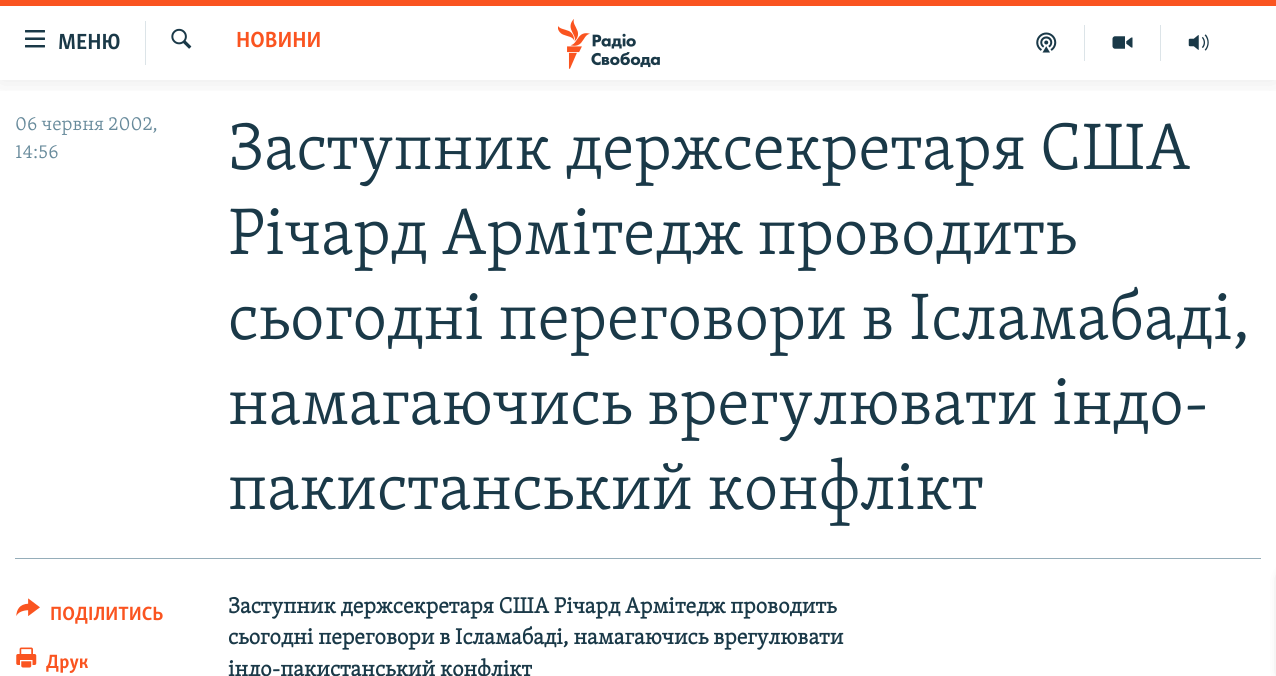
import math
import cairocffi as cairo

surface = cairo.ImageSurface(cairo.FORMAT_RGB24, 1276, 676)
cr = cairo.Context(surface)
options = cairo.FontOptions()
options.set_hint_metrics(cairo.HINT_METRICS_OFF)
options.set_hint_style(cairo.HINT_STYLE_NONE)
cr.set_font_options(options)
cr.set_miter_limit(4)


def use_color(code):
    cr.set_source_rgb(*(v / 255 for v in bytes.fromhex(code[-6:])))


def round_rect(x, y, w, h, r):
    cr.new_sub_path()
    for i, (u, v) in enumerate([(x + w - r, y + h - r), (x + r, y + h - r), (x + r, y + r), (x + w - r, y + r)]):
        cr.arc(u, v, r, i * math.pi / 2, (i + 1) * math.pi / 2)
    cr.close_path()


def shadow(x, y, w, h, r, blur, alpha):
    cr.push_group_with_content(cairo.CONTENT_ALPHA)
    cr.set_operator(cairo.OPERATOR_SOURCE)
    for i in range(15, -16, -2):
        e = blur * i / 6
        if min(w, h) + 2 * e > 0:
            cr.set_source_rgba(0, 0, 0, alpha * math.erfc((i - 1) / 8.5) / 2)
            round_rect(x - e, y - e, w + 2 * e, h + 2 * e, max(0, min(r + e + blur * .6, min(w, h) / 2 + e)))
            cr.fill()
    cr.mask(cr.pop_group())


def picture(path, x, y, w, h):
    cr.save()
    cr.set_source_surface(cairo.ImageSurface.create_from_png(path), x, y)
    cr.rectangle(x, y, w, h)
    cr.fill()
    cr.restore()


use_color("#ffffff")
cr.paint()
cr.save()
cr.rectangle(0, 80, 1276, 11)
cr.clip()
use_color("#000000")
shadow(0, 0, 1276, 80, 0, 12.5, 0.1)
cr.restore()
use_color("#fa5420")
cr.rectangle(0, 0, 1276, 6)
cr.fill()
picture("img1.png", 25, 30, 20, 18)
cr.select_font_face("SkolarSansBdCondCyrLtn", cairo.FONT_SLANT_NORMAL, cairo.FONT_WEIGHT_BOLD)
cr.set_font_size(22.5)
use_color("#1a3948")
cr.move_to(58, 49)
cr.show_text("МЕНЮ")
use_color("#dce4e8")
cr.rectangle(145, 21, 1, 44)
cr.fill()
picture("img2.png", 171, 28, 21, 21)
use_color("#fa5420")
cr.move_to(236, 47)
cr.show_text("НОВИНИ")
picture("img3.png", 558, 19, 102, 50)
use_color("#dce4e8")
cr.rectangle(1084, 25, 1, 36)
cr.fill()
picture("img4.png", 1036, 32, 21, 21)
cr.rectangle(1160, 25, 1, 36)
cr.fill()
picture("img5.png", 1112, 36, 21, 13)
picture("img6.png", 1188, 34, 21, 17)
cr.select_font_face("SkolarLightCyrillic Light")
cr.set_font_size(19.75)
use_color("#678a9b")
cr.move_to(15, 130)
cr.show_text("06 червня 2002,")
cr.move_to(15, 158)
cr.show_text("14:56")
cr.set_font_size(67.5)
use_color("#1a3948")
cr.move_to(228, 169)
cr.show_text("Заступник держсекретаря США")
cr.move_to(228, 254)
cr.show_text("Річард Армітедж проводить")
cr.move_to(228, 339)
cr.show_text("сьогодні переговори в Ісламабаді,")
cr.move_to(228, 424)
cr.show_text("намагаючись врегулювати індо-")
cr.move_to(228, 509)
cr.show_text("пакистанський конфлікт")
use_color("#95adb9")
cr.rectangle(15, 558, 1246, 1)
cr.fill()
picture("img7.png", 16, 598, 24, 18)
cr.select_font_face("SkolarSansBdCondCyrLtn", cairo.FONT_SLANT_NORMAL, cairo.FONT_WEIGHT_BOLD)
cr.set_font_size(19.75)
use_color("#fa5420")
cr.move_to(50, 620)
cr.show_text("ПОДІЛИТИСЬ")
picture("img8.png", 16, 647, 21, 21)
cr.move_to(46, 668)
cr.show_text("Друк")
cr.select_font_face("SkolarLightCyrillic", cairo.FONT_SLANT_NORMAL, cairo.FONT_WEIGHT_BOLD)
cr.set_font_size(22.5)
use_color("#1a3948")
cr.move_to(228, 613)
cr.show_text("Заступник держсекретаря США Річард Армітедж проводить")
cr.move_to(228, 644)
cr.show_text("сьогодні переговори в Ісламабаді, намагаючись врегулювати")
cr.move_to(228, 676)
cr.show_text("індо-пакистанський конфлікт")
use_color("#000000")
shadow(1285, 575, 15, 101, 6, 6, 0.85)
surface.write_to_png("result.png")
